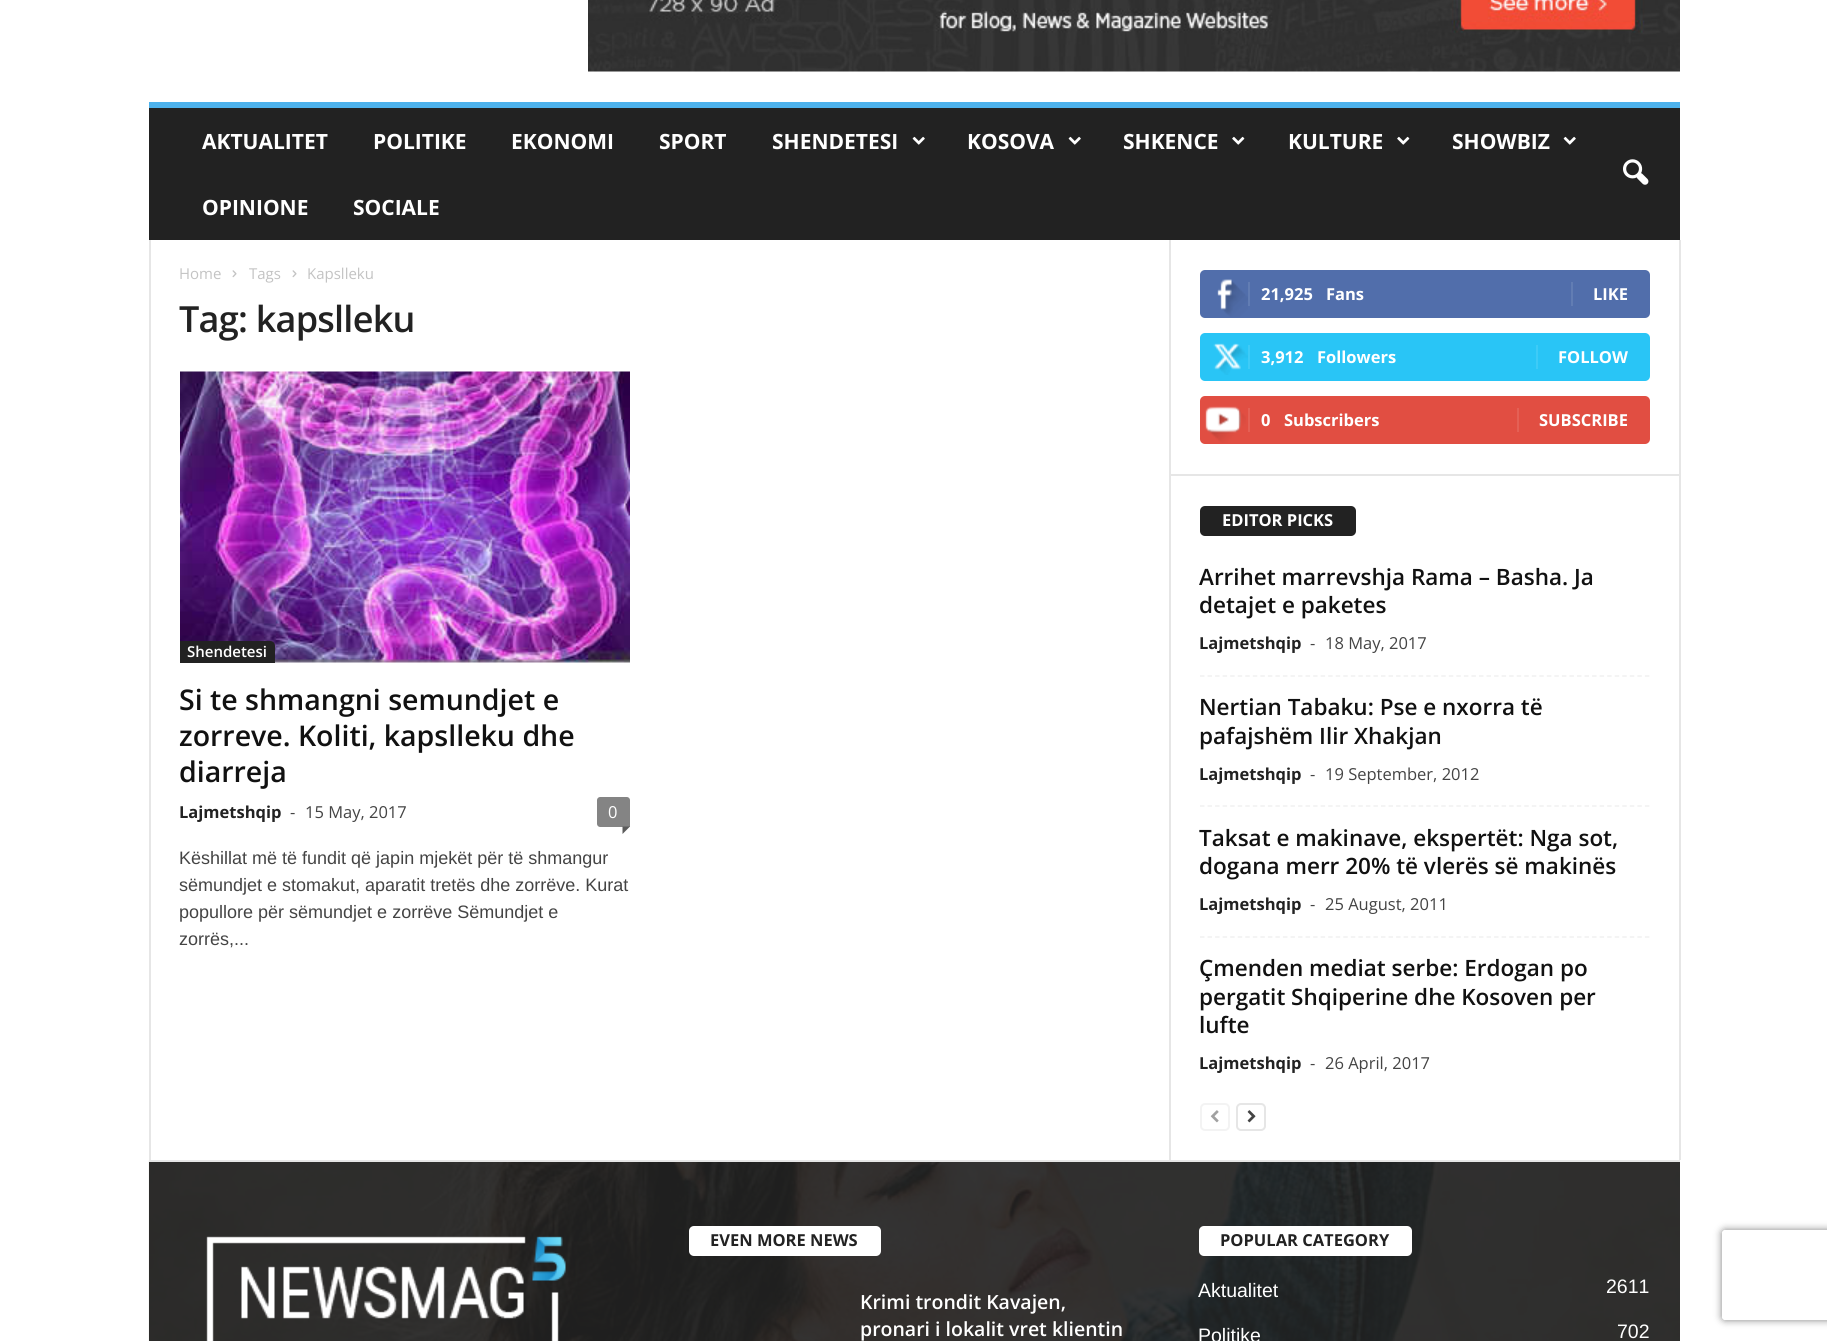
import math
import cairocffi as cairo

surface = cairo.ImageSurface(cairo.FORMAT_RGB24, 1827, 1341)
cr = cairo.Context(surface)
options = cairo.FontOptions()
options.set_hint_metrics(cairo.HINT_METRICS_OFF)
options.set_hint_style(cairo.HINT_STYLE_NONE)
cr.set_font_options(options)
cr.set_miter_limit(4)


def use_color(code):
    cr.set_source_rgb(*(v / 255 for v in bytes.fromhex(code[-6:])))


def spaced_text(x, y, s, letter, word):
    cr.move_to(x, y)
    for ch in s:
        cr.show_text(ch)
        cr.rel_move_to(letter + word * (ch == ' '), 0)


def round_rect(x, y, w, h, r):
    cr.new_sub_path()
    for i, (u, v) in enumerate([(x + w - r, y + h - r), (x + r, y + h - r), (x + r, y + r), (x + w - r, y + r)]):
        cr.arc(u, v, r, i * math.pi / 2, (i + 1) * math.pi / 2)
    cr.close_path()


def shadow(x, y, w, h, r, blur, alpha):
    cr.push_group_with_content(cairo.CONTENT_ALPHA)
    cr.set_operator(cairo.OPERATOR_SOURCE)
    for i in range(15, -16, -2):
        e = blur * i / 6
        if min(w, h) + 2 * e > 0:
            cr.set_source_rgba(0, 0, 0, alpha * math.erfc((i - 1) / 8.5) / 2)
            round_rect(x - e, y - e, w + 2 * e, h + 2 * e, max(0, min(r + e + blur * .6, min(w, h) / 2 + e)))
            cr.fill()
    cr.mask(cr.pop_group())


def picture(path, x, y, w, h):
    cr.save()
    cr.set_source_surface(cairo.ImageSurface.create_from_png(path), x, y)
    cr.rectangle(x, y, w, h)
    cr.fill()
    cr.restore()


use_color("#ffffff")
cr.paint()
picture("img1.png", 588, 0, 1092, 72)
use_color("#222222")
cr.rectangle(149, 108, 1531, 132)
cr.fill()
use_color("#4db2ec")
cr.rectangle(149, 102, 1531, 6)
cr.fill()
cr.select_font_face("Open Sans", cairo.FONT_SLANT_NORMAL, cairo.FONT_WEIGHT_BOLD)
cr.set_font_size(21)
use_color("#ffffff")
cr.move_to(202, 149)
cr.show_text("AKTUALITET")
cr.move_to(373, 149)
cr.show_text("POLITIKE")
cr.move_to(511, 149)
cr.show_text("EKONOMI")
cr.move_to(659, 149)
cr.show_text("SPORT")
cr.move_to(772, 149)
cr.show_text("SHENDETESI")
picture("img2.png", 912, 136, 13, 9)
cr.move_to(967, 149)
cr.show_text("KOSOVA")
picture("img2.png", 1068, 136, 13, 9)
cr.move_to(1123, 149)
cr.show_text("SHKENCE")
picture("img3.png", 1232, 136, 13, 9)
cr.move_to(1288, 149)
cr.show_text("KULTURE")
picture("img3.png", 1397, 136, 13, 9)
cr.move_to(1452, 149)
cr.show_text("SHOWBIZ")
picture("img2.png", 1563, 136, 13, 9)
cr.move_to(202, 215)
cr.show_text("OPINIONE")
cr.move_to(353, 215)
cr.show_text("SOCIALE")
picture("img4.png", 1623, 159, 26, 26)
use_color("#222222")
cr.rectangle(149, 1162, 1531, 179)
cr.fill()
picture("img12.png", 148, 1160, 1532, 181)
use_color("#e6e6e6")
cr.rectangle(149, 1160, 1531, 2)
cr.fill()
cr.rectangle(149, 240, 2, 920)
cr.fill()
cr.select_font_face("Open Sans")
cr.set_font_size(15)
use_color("#c3c3c3")
cr.move_to(179, 279)
cr.show_text("Home")
picture("img5.png", 232, 270, 5, 8)
cr.move_to(249, 279)
cr.show_text("Tags")
picture("img5.png", 292, 270, 5, 8)
cr.move_to(307, 279)
cr.show_text("Kapslleku")
cr.select_font_face("Open Sans SemiBold")
cr.set_font_size(36)
use_color("#222222")
spaced_text(179, 332, "Tag: kapslleku", -0.75, 0)
picture("img6.png", 180, 371, 450, 292)
cr.new_path()
cr.move_to(180, 641)
cr.line_to(270, 641)
cr.curve_to(273, 641, 275, 643, 275, 646)
cr.line_to(275, 663)
cr.line_to(180, 663)
cr.close_path()
cr.fill()
cr.set_font_size(15)
use_color("#ffffff")
cr.move_to(187, 657)
cr.show_text("Shendetesi")
cr.set_font_size(28.5)
use_color("#111111")
cr.move_to(179, 710)
cr.show_text("Si te shmangni semundjet e")
cr.move_to(179, 746)
cr.show_text("zorreve. Koliti, kapslleku dhe")
cr.move_to(179, 782)
cr.show_text("diarreja")
cr.select_font_face("Open Sans", cairo.FONT_SLANT_NORMAL, cairo.FONT_WEIGHT_BOLD)
cr.set_font_size(16.5)
use_color("#222222")
cr.move_to(179, 818)
cr.show_text("Lajmetshqip")
cr.select_font_face("Open Sans")
use_color("#444444")
cr.move_to(290, 818)
cr.show_text("-")
cr.move_to(305, 818)
cr.show_text("15 May, 2017")
use_color("#848484")
cr.new_path()
cr.move_to(600, 797)
cr.line_to(627, 797)
cr.curve_to(628.5, 797, 630, 798.5, 630, 800)
cr.line_to(630, 827)
cr.line_to(600, 827)
cr.curve_to(598.5, 827, 597, 825.5, 597, 824)
cr.line_to(597, 800)
cr.curve_to(597, 798.5, 598.5, 797, 600, 797)
cr.close_path()
cr.fill()
use_color("#ffffff")
cr.move_to(608, 818)
cr.show_text("0")
use_color("#5b5b5b")
cr.new_path()
cr.move_to(622.5, 826.5)
cr.line_to(630, 826.5)
cr.line_to(622.5, 834)
cr.close_path()
cr.fill()
cr.select_font_face("Liberation Sans")
cr.set_font_size(18)
use_color("#444444")
cr.move_to(179, 864)
cr.show_text("Këshillat më të fundit që japin mjekët për të shmangur")
cr.move_to(179, 891)
cr.show_text("sëmundjet e stomakut, aparatit tretës dhe zorrëve. Kurat")
cr.move_to(179, 918)
cr.show_text("popullore për sëmundjet e zorrëve Sëmundjet e")
cr.move_to(179, 945)
cr.show_text("zorrës,...")
use_color("#e6e6e6")
cr.rectangle(1169, 240, 2, 920)
cr.fill()
use_color("#516eab")
round_rect(1200, 270, 450, 48, 5)
cr.fill()
picture("img7.png", 1217, 279, 31, 38)
use_color("#627db3")
cr.rectangle(1248, 282, 2, 24)
cr.fill()
cr.select_font_face("Open Sans", cairo.FONT_SLANT_NORMAL, cairo.FONT_WEIGHT_BOLD)
cr.set_font_size(16.5)
use_color("#ffffff")
cr.move_to(1261, 300)
cr.show_text("21,925")
cr.move_to(1326, 300)
cr.show_text("Fans")
use_color("#627db3")
cr.rectangle(1571, 282, 2, 24)
cr.fill()
use_color("#ffffff")
cr.move_to(1593, 300)
cr.show_text("LIKE")
use_color("#29c5f6")
round_rect(1200, 333, 450, 48, 5)
cr.fill()
picture("img8.png", 1213, 343, 35, 32)
use_color("#3ecbf7")
cr.rectangle(1248, 345, 2, 24)
cr.fill()
use_color("#ffffff")
cr.move_to(1261, 363)
cr.show_text("3,912")
cr.move_to(1317, 363)
cr.show_text("Followers")
use_color("#3ecbf7")
cr.rectangle(1536, 345, 2, 24)
cr.fill()
use_color("#ffffff")
cr.move_to(1558, 363)
cr.show_text("FOLLOW")
use_color("#e14e42")
round_rect(1200, 396, 450, 48, 5)
cr.fill()
picture("img9.png", 1205, 406, 41, 37)
use_color("#e46055")
cr.rectangle(1248, 408, 2, 24)
cr.fill()
use_color("#ffffff")
cr.move_to(1261, 426)
cr.show_text("0")
cr.move_to(1284, 426)
cr.show_text("Subscribers")
use_color("#e46055")
cr.rectangle(1517, 408, 2, 24)
cr.fill()
use_color("#ffffff")
cr.move_to(1539, 426)
cr.show_text("SUBSCRIBE")
use_color("#e6e6e6")
cr.rectangle(1170, 474, 509, 2)
cr.fill()
use_color("#222222")
round_rect(1200, 506, 156, 30, 5)
cr.fill()
use_color("#ffffff")
cr.move_to(1222, 526)
cr.show_text("EDITOR PICKS")
cr.new_path()
cr.move_to(1200, 676)
cr.line_to(1650, 676)
use_color("#f1f1f1")
cr.set_line_width(1.5)
cr.set_dash([4.5, 3.04])
cr.stroke()
cr.select_font_face("Open Sans SemiBold")
cr.set_font_size(22.5)
use_color("#111111")
cr.move_to(1199, 585)
cr.show_text("Arrihet marrevshja Rama – Basha. Ja")
cr.move_to(1199, 613)
cr.show_text("detajet e paketes")
cr.select_font_face("Open Sans", cairo.FONT_SLANT_NORMAL, cairo.FONT_WEIGHT_BOLD)
cr.set_font_size(16.5)
use_color("#222222")
cr.move_to(1199, 649)
cr.show_text("Lajmetshqip")
cr.select_font_face("Open Sans")
use_color("#444444")
cr.move_to(1310, 649)
cr.show_text("-")
cr.move_to(1325, 649)
cr.show_text("18 May, 2017")
cr.new_path()
cr.move_to(1200, 806)
cr.line_to(1650, 806)
use_color("#f1f1f1")
cr.stroke()
cr.select_font_face("Open Sans SemiBold")
cr.set_font_size(22.5)
use_color("#111111")
cr.move_to(1199, 715)
cr.show_text("Nertian Tabaku: Pse e nxorra të")
cr.move_to(1199, 744)
cr.show_text("pafajshëm Ilir Xhakjan")
cr.select_font_face("Open Sans", cairo.FONT_SLANT_NORMAL, cairo.FONT_WEIGHT_BOLD)
cr.set_font_size(16.5)
use_color("#222222")
cr.move_to(1199, 780)
cr.show_text("Lajmetshqip")
cr.select_font_face("Open Sans")
use_color("#444444")
cr.move_to(1310, 780)
cr.show_text("-")
cr.move_to(1325, 780)
cr.show_text("19 September, 2012")
cr.new_path()
cr.move_to(1200, 937)
cr.line_to(1650, 937)
use_color("#f1f1f1")
cr.stroke()
cr.select_font_face("Open Sans SemiBold")
cr.set_font_size(22.5)
use_color("#111111")
cr.move_to(1199, 846)
cr.show_text("Taksat e makinave, ekspertët: Nga sot,")
cr.move_to(1199, 874)
cr.show_text("dogana merr 20% të vlerës së makinës")
cr.select_font_face("Open Sans", cairo.FONT_SLANT_NORMAL, cairo.FONT_WEIGHT_BOLD)
cr.set_font_size(16.5)
use_color("#222222")
cr.move_to(1199, 910)
cr.show_text("Lajmetshqip")
cr.select_font_face("Open Sans")
use_color("#444444")
cr.move_to(1310, 910)
cr.show_text("-")
cr.move_to(1325, 910)
cr.show_text("25 August, 2011")
cr.select_font_face("Open Sans SemiBold")
cr.set_font_size(22.5)
use_color("#111111")
cr.move_to(1199, 976)
cr.show_text("Çmenden mediat serbe: Erdogan po")
cr.move_to(1199, 1005)
cr.show_text("pergatit Shqiperine dhe Kosoven per")
cr.move_to(1199, 1033)
cr.show_text("lufte")
cr.select_font_face("Open Sans", cairo.FONT_SLANT_NORMAL, cairo.FONT_WEIGHT_BOLD)
cr.set_font_size(16.5)
use_color("#222222")
cr.move_to(1199, 1069)
cr.show_text("Lajmetshqip")
cr.select_font_face("Open Sans")
use_color("#444444")
cr.move_to(1310, 1069)
cr.show_text("-")
cr.move_to(1325, 1069)
cr.show_text("26 April, 2017")
round_rect(1201, 1104, 28, 26, 4)
use_color("#f3f3f3")
cr.set_line_width(2)
cr.set_dash([])
cr.stroke()
picture("img10.png", 1210, 1110, 9, 13)
round_rect(1237, 1104, 28, 26, 4)
use_color("#e6e6e6")
cr.stroke()
picture("img11.png", 1247, 1110, 9, 13)
cr.rectangle(1679, 240, 2, 920)
cr.fill()
picture("img13.png", 206, 1236, 360, 105)
use_color("#ffffff")
round_rect(689, 1226, 192, 30, 5)
cr.fill()
cr.select_font_face("Open Sans", cairo.FONT_SLANT_NORMAL, cairo.FONT_WEIGHT_BOLD)
use_color("#222222")
cr.move_to(710, 1246)
cr.show_text("EVEN MORE NEWS")
cr.select_font_face("Open Sans SemiBold")
cr.set_font_size(19.5)
use_color("#ffffff")
cr.move_to(860, 1309)
cr.show_text("Krimi trondit Kavajen,")
cr.move_to(860, 1336)
cr.show_text("pronari i lokalit vret klientin")
round_rect(1199, 1226, 213, 30, 5)
cr.fill()
cr.select_font_face("Open Sans", cairo.FONT_SLANT_NORMAL, cairo.FONT_WEIGHT_BOLD)
cr.set_font_size(16.5)
use_color("#222222")
cr.move_to(1220, 1246)
cr.show_text("POPULAR CATEGORY")
cr.select_font_face("Liberation Sans")
cr.set_font_size(19.5)
use_color("#ffffff")
cr.move_to(1198, 1297)
cr.show_text("Aktualitet")
cr.move_to(1606, 1293)
cr.show_text("2611")
cr.move_to(1198, 1342)
cr.show_text("Politike")
cr.move_to(1617, 1338)
cr.show_text("702")
cr.save()
cr.set_fill_rule(cairo.FILL_RULE_EVEN_ODD)
cr.new_path()
cr.move_to(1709, 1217)
cr.line_to(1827, 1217)
cr.line_to(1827, 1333)
cr.line_to(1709, 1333)
cr.close_path()
cr.move_to(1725, 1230)
cr.line_to(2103, 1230)
cr.curve_to(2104.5, 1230, 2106, 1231.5, 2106, 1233)
cr.line_to(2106, 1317)
cr.curve_to(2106, 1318.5, 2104.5, 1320, 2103, 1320)
cr.line_to(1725, 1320)
cr.curve_to(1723.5, 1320, 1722, 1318.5, 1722, 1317)
cr.line_to(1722, 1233)
cr.curve_to(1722, 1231.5, 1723.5, 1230, 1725, 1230)
cr.close_path()
cr.clip()
use_color("#808080")
shadow(1722, 1230, 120, 90, 3, 4, 1)
cr.restore()
surface.write_to_png("result.png")
